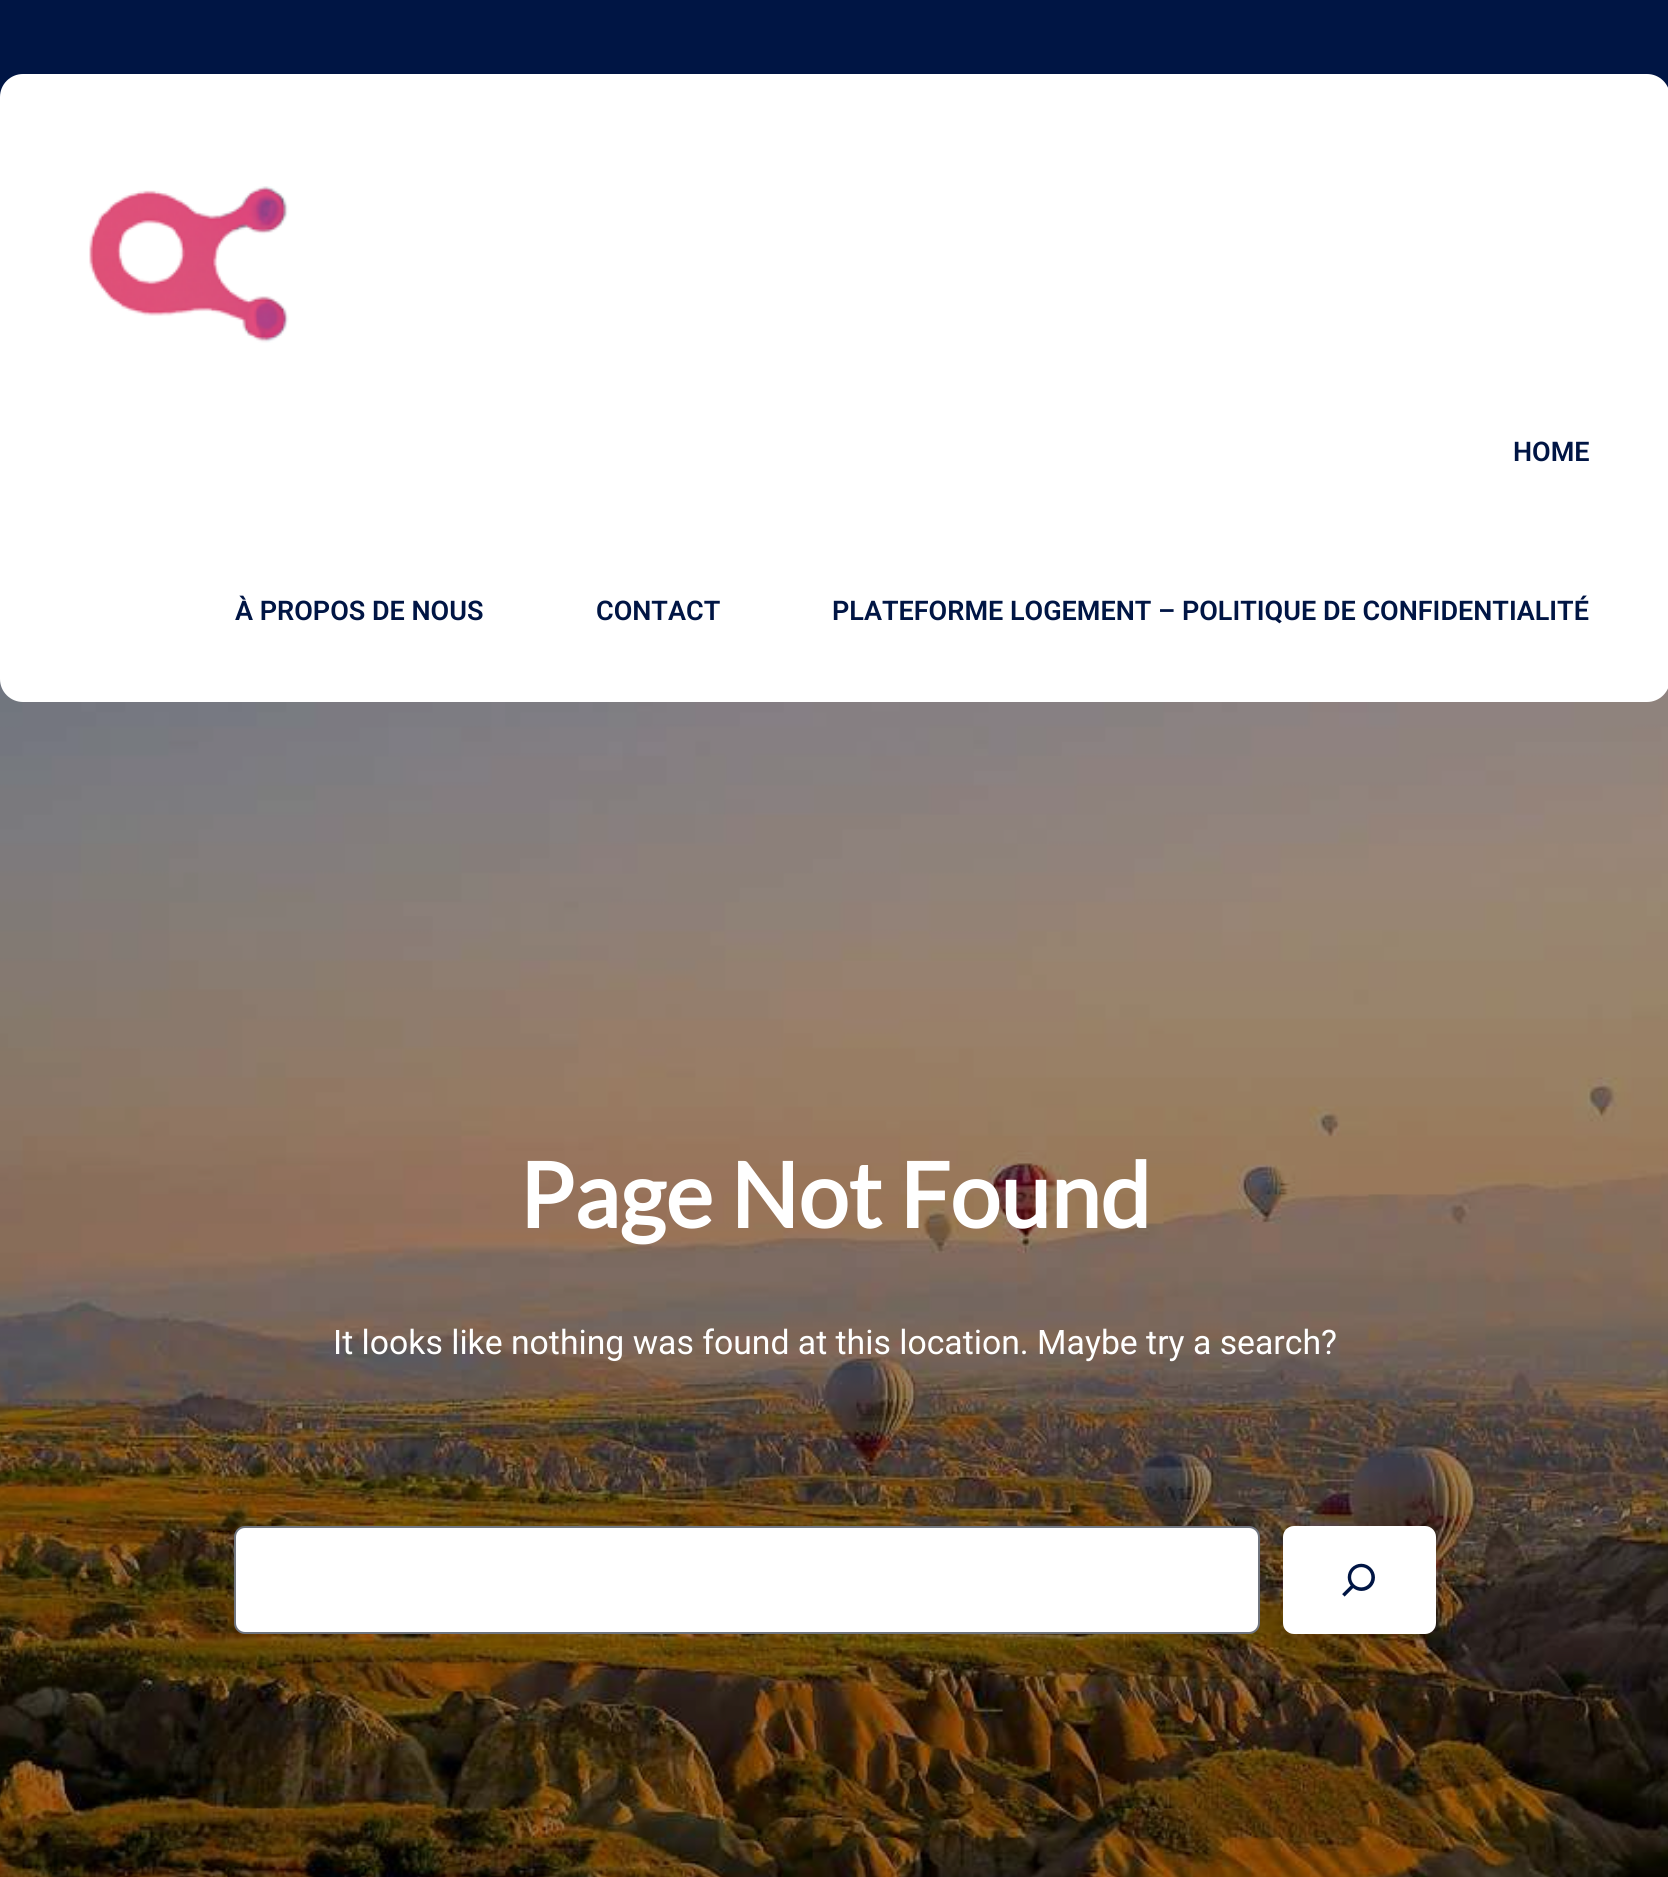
import math
import cairocffi as cairo

surface = cairo.ImageSurface(cairo.FORMAT_RGB24, 1668, 1877)
cr = cairo.Context(surface)
options = cairo.FontOptions()
options.set_hint_metrics(cairo.HINT_METRICS_OFF)
options.set_hint_style(cairo.HINT_STYLE_NONE)
cr.set_font_options(options)
cr.set_miter_limit(4)


def use_color(code):
    cr.set_source_rgb(*(v / 255 for v in bytes.fromhex(code[-6:])))


def round_rect(x, y, w, h, r):
    cr.new_sub_path()
    for i, (u, v) in enumerate([(x + w - r, y + h - r), (x + r, y + h - r), (x + r, y + r), (x + w - r, y + r)]):
        cr.arc(u, v, r, i * math.pi / 2, (i + 1) * math.pi / 2)
    cr.close_path()


def picture(path, x, y, w, h):
    cr.save()
    cr.set_source_surface(cairo.ImageSurface.create_from_png(path), x, y)
    cr.rectangle(x, y, w, h)
    cr.fill()
    cr.restore()


use_color("#ffffff")
cr.paint()
use_color("#001544")
cr.rectangle(0, 0, 1668, 97)
cr.fill()
picture("img2.png", 0, 679, 1668, 1198)
use_color("#ffffff")
round_rect(0, 74, 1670, 628, 23)
cr.fill()
picture("img1.png", 89, 186, 200, 157)
cr.select_font_face("Roboto SemiBold")
cr.set_font_size(27)
use_color("#001544")
cr.move_to(1513, 461)
cr.show_text("HOME")
cr.move_to(235, 620)
cr.show_text("À PROPOS DE NOUS")
cr.move_to(596, 620)
cr.show_text("CONTACT")
cr.move_to(832, 620)
cr.show_text("PLATEFORME LOGEMENT – POLITIQUE DE CONFIDENTIALITÉ")
cr.select_font_face("Lato", cairo.FONT_SLANT_NORMAL, cairo.FONT_WEIGHT_BOLD)
cr.set_font_size(90)
use_color("#ffffff")
cr.move_to(519, 1228)
cr.show_text("Page Not Found")
cr.select_font_face("Roboto")
cr.set_font_size(33.75)
cr.move_to(333, 1354)
cr.show_text("It looks like nothing was found at this location. Maybe try a search?")
round_rect(235, 1527, 1024, 106, 10)
cr.fill_preserve()
use_color("#6f747e")
cr.stroke()
use_color("#ffffff")
round_rect(1283, 1526, 153, 108, 11)
cr.fill()
picture("img3.png", 1342, 1563, 33, 34)
surface.write_to_png("result.png")
